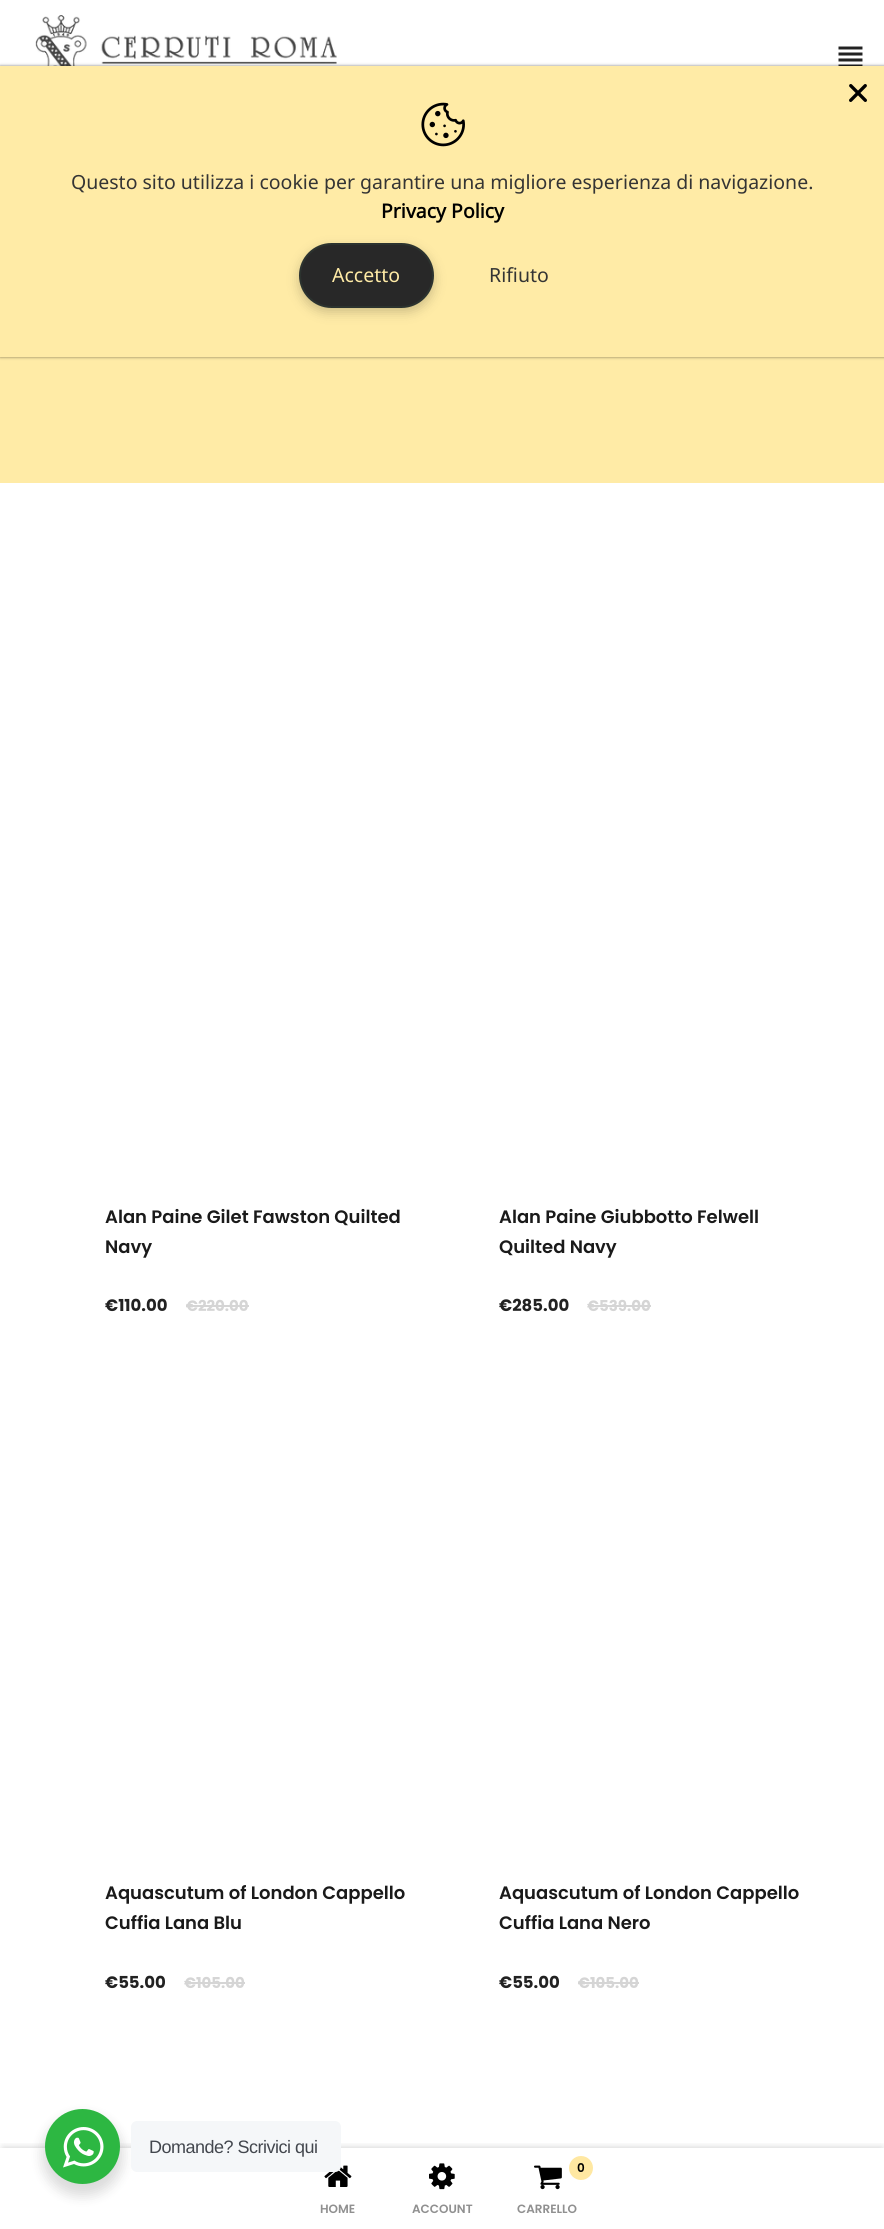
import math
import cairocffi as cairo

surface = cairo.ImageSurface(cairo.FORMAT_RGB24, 884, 2229)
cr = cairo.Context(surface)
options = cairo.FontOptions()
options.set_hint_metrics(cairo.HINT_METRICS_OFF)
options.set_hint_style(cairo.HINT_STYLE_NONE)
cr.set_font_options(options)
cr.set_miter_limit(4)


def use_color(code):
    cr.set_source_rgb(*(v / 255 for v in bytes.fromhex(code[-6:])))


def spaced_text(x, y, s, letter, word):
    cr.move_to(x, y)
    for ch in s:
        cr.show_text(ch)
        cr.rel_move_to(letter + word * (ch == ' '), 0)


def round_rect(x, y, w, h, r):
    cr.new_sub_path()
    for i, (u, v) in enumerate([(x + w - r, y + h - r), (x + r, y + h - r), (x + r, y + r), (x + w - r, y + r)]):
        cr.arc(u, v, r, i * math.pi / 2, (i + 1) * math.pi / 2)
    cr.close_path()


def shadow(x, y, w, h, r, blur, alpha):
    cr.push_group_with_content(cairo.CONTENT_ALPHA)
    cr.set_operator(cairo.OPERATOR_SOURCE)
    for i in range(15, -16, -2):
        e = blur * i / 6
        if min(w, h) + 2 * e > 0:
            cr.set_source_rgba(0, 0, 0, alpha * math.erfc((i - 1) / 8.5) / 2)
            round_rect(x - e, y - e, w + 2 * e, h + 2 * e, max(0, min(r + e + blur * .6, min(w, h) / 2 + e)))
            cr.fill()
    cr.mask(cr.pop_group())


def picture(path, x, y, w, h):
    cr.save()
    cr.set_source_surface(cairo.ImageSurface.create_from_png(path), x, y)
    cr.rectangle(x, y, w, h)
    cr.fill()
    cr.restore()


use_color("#ffffff")
cr.paint()
picture("img3.png", 35, 15, 302, 51)
picture("img4.png", 838, 46, 25, 20)
use_color("#ffeba6")
cr.rectangle(0, 357, 884, 126)
cr.fill()
use_color("#000000")
shadow(0, 66, 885, 291, 0, 1.5, 0.5)
use_color("#ffeba6")
cr.rectangle(0, 66, 884, 291)
cr.fill()
picture("img1.png", 849, 84, 18, 18)
picture("img2.png", 421, 102, 44, 45)
cr.select_font_face("Noto Sans")
cr.set_font_size(19.5)
use_color("#343434")
cr.move_to(71, 189)
cr.show_text("Questo sito utilizza i cookie per garantire una migliore esperienza di navigazione.")
cr.select_font_face("Noto Sans", cairo.FONT_SLANT_NORMAL, cairo.FONT_WEIGHT_BOLD)
use_color("#000000")
cr.move_to(381, 218)
cr.show_text("Privacy Policy")
use_color("#000000")
shadow(299, 248, 135, 64, 32, 6, 0.2)
use_color("#282828")
round_rect(300, 244, 133, 63, 31.5)
cr.fill_preserve()
use_color("#2c332f")
cr.stroke()
cr.select_font_face("Noto Sans")
use_color("#ffeba6")
cr.move_to(332, 282)
cr.show_text("Accetto")
use_color("#343434")
cr.move_to(489, 282)
cr.show_text("Rifiuto")
cr.select_font_face("Poppins SemiBold")
cr.set_font_size(18)
use_color("#1a1a1a")
cr.move_to(105, 1223)
cr.show_text("Alan Paine Gilet Fawston Quilted")
cr.move_to(105, 1253)
cr.show_text("Navy")
cr.select_font_face("Poppins", cairo.FONT_SLANT_NORMAL, cairo.FONT_WEIGHT_BOLD)
cr.set_font_size(16.5)
use_color("#222222")
cr.move_to(105, 1311)
cr.show_text("€110.00")
cr.set_font_size(15)
use_color("#d5d5d5")
cr.move_to(186, 1311)
cr.show_text("€220.00")
cr.rectangle(186, 1305, 63, 2)
cr.fill()
cr.select_font_face("Poppins SemiBold")
cr.set_font_size(18)
use_color("#1a1a1a")
cr.move_to(499, 1223)
cr.show_text("Alan Paine Giubbotto Felwell")
cr.move_to(499, 1253)
cr.show_text("Quilted Navy")
cr.select_font_face("Poppins", cairo.FONT_SLANT_NORMAL, cairo.FONT_WEIGHT_BOLD)
cr.set_font_size(16.5)
use_color("#222222")
cr.move_to(499, 1311)
cr.show_text("€285.00")
cr.set_font_size(15)
use_color("#d5d5d5")
cr.move_to(587, 1311)
cr.show_text("€539.00")
cr.rectangle(588, 1305, 63, 2)
cr.fill()
cr.select_font_face("Poppins SemiBold")
cr.set_font_size(18)
use_color("#1a1a1a")
cr.move_to(105, 1899)
cr.show_text("Aquascutum of London Cappello")
cr.move_to(105, 1929)
cr.show_text("Cuffia Lana Blu")
cr.select_font_face("Poppins", cairo.FONT_SLANT_NORMAL, cairo.FONT_WEIGHT_BOLD)
cr.set_font_size(16.5)
use_color("#222222")
cr.move_to(105, 1988)
cr.show_text("€55.00")
cr.set_font_size(15)
use_color("#d5d5d5")
cr.move_to(184, 1988)
cr.show_text("€105.00")
cr.rectangle(185, 1982, 60, 2)
cr.fill()
cr.select_font_face("Poppins SemiBold")
cr.set_font_size(18)
use_color("#1a1a1a")
cr.move_to(499, 1899)
cr.show_text("Aquascutum of London Cappello")
cr.move_to(499, 1929)
cr.show_text("Cuffia Lana Nero")
cr.select_font_face("Poppins", cairo.FONT_SLANT_NORMAL, cairo.FONT_WEIGHT_BOLD)
cr.set_font_size(16.5)
use_color("#222222")
cr.move_to(499, 1988)
cr.show_text("€55.00")
cr.set_font_size(15)
use_color("#d5d5d5")
cr.move_to(578, 1988)
cr.show_text("€105.00")
cr.rectangle(578, 1982, 61, 2)
cr.fill()
use_color("#000000")
shadow(42, 2115, 81, 81, 40.5, 6, 0.14)
cr.save()
cr.rectangle(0, 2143, 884, 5)
cr.clip()
shadow(3, 2148, 879, 75, 0, 4, 0.2)
cr.restore()
use_color("#2db742")
cr.arc(82.5, 2146.5, 37.5, 0, 2 * math.pi)
cr.fill()
picture("img5.png", 63, 2127, 41, 41)
picture("img6.png", 324, 2165, 28, 22)
use_color("#f5f7f9")
round_rect(131, 2121, 210, 51, 6)
cr.fill()
cr.select_font_face("Liberation Sans")
cr.set_font_size(18)
use_color("#43474e")
spaced_text(149, 2153, "Domande? Scrivici qui", -0.5, 0)
cr.select_font_face("Poppins SemiBold")
cr.set_font_size(12)
use_color("#909090")
cr.move_to(320, 2213)
cr.show_text("HOME")
picture("img7.png", 429, 2163, 26, 27)
cr.move_to(412, 2213)
cr.show_text("ACCOUNT")
picture("img8.png", 534, 2165, 28, 25)
use_color("#ffe8a2")
cr.arc(581, 2168, 12, 0, 2 * math.pi)
cr.fill()
use_color("#000000")
cr.move_to(577, 2172)
cr.show_text("0")
use_color("#909090")
cr.move_to(517, 2213)
cr.show_text("CARRELLO")
surface.write_to_png("result.png")
